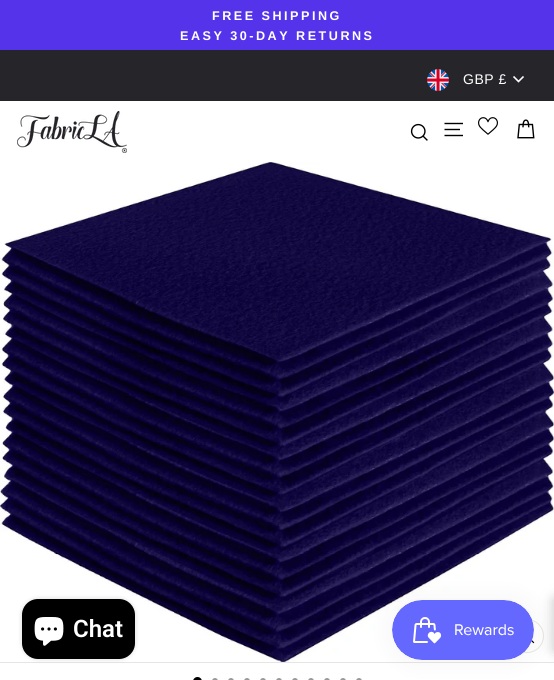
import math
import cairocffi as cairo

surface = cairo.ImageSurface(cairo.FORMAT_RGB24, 554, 680)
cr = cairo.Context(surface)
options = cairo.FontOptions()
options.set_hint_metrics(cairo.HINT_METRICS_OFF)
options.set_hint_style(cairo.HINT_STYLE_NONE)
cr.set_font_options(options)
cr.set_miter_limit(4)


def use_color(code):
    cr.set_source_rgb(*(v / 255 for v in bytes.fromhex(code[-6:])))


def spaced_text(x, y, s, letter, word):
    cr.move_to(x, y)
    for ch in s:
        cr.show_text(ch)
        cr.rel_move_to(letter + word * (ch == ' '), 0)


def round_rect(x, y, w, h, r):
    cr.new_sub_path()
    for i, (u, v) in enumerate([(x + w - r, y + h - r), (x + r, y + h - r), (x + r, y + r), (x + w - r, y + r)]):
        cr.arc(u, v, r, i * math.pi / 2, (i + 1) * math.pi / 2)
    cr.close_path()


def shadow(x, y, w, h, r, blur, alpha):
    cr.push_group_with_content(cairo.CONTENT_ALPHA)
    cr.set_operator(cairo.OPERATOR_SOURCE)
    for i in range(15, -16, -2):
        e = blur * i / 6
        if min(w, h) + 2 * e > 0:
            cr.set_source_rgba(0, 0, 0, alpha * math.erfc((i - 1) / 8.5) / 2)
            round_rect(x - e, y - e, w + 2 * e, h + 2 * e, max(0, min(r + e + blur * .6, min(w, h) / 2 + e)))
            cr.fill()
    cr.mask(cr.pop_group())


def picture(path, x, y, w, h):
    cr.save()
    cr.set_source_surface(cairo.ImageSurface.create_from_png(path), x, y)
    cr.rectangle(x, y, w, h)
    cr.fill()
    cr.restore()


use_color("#ffffff")
cr.paint()
use_color("#5433eb")
cr.rectangle(0, 0, 554, 50)
cr.fill()
cr.select_font_face("Arimo", cairo.FONT_SLANT_NORMAL, cairo.FONT_WEIGHT_BOLD)
cr.set_font_size(12.6)
use_color("#ffffff")
spaced_text(212, 20, "FREE SHIPPING", 2.5, 0)
spaced_text(180, 40, "EASY 30-DAY RETURNS", 2.5, 0)
use_color("#26252a")
cr.rectangle(0, 50, 554, 51)
cr.fill()
picture("img1.png", 427, 69, 22, 22)
cr.select_font_face("Arimo")
cr.set_font_size(14)
use_color("#ffffff")
spaced_text(463, 84, "GBP £", 0.5, 0)
cr.new_path()
cr.move_to(513.5, 76.5)
cr.line_to(518.5, 81.5)
cr.line_to(523.5, 76.5)
cr.set_line_width(1.6)
cr.stroke()
picture("img2.png", 17, 111, 110, 42)
picture("img3.png", 410, 123, 18, 18)
cr.new_path()
cr.move_to(444.5, 123.5)
cr.line_to(463, 123.5)
cr.move_to(444.5, 129.5)
cr.line_to(460, 129.5)
cr.move_to(444.5, 135.5)
cr.line_to(463, 135.5)
use_color("#000000")
cr.set_line_width(1.4)
cr.stroke()
picture("img4.png", 478, 117, 20, 18)
picture("img5.png", 517, 119, 18, 20)
use_color("#e5e5e5")
cr.rectangle(0, 662, 554, 1)
cr.fill()
picture("img6.png", 0, 162, 554, 500)
cr.arc(527, 636, 16.5, 0, 2 * math.pi)
use_color("#e8e8e1")
cr.set_line_width(1)
cr.stroke()
picture("img7.png", 531, 640, 4, 4)
use_color("#000000")
round_rect(193, 677, 9, 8, 4.5)
cr.fill()
use_color("#999999")
round_rect(212, 678, 6, 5, 3)
cr.fill()
round_rect(228, 678, 6, 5, 3)
cr.fill()
round_rect(244, 678, 6, 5, 3)
cr.fill()
round_rect(260, 678, 6, 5, 3)
cr.fill()
round_rect(276, 678, 6, 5, 3)
cr.fill()
round_rect(292, 678, 6, 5, 3)
cr.fill()
round_rect(308, 678, 6, 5, 3)
cr.fill()
round_rect(324, 678, 6, 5, 3)
cr.fill()
round_rect(340, 678, 6, 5, 3)
cr.fill()
round_rect(356, 678, 6, 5, 3)
cr.fill()
use_color("#000000")
shadow(392, 600, 142, 60, 30, 12.5, 0.05)
use_color("#757575")
shadow(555, 600, 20, 50, 0, 7, 0.5)
picture("img8.png", 392, 600, 142, 60)
use_color("#000000")
shadow(22, 599, 113, 60, 16, 2.5, 0.15)
use_color("#000000")
round_rect(22, 599, 113, 60, 16)
cr.fill()
picture("img9.png", 34, 617, 30, 29)
cr.select_font_face("Roboto SemiBold")
cr.set_font_size(24)
use_color("#ffffff")
cr.move_to(73, 637)
cr.show_text("Chat")
surface.write_to_png("result.png")
